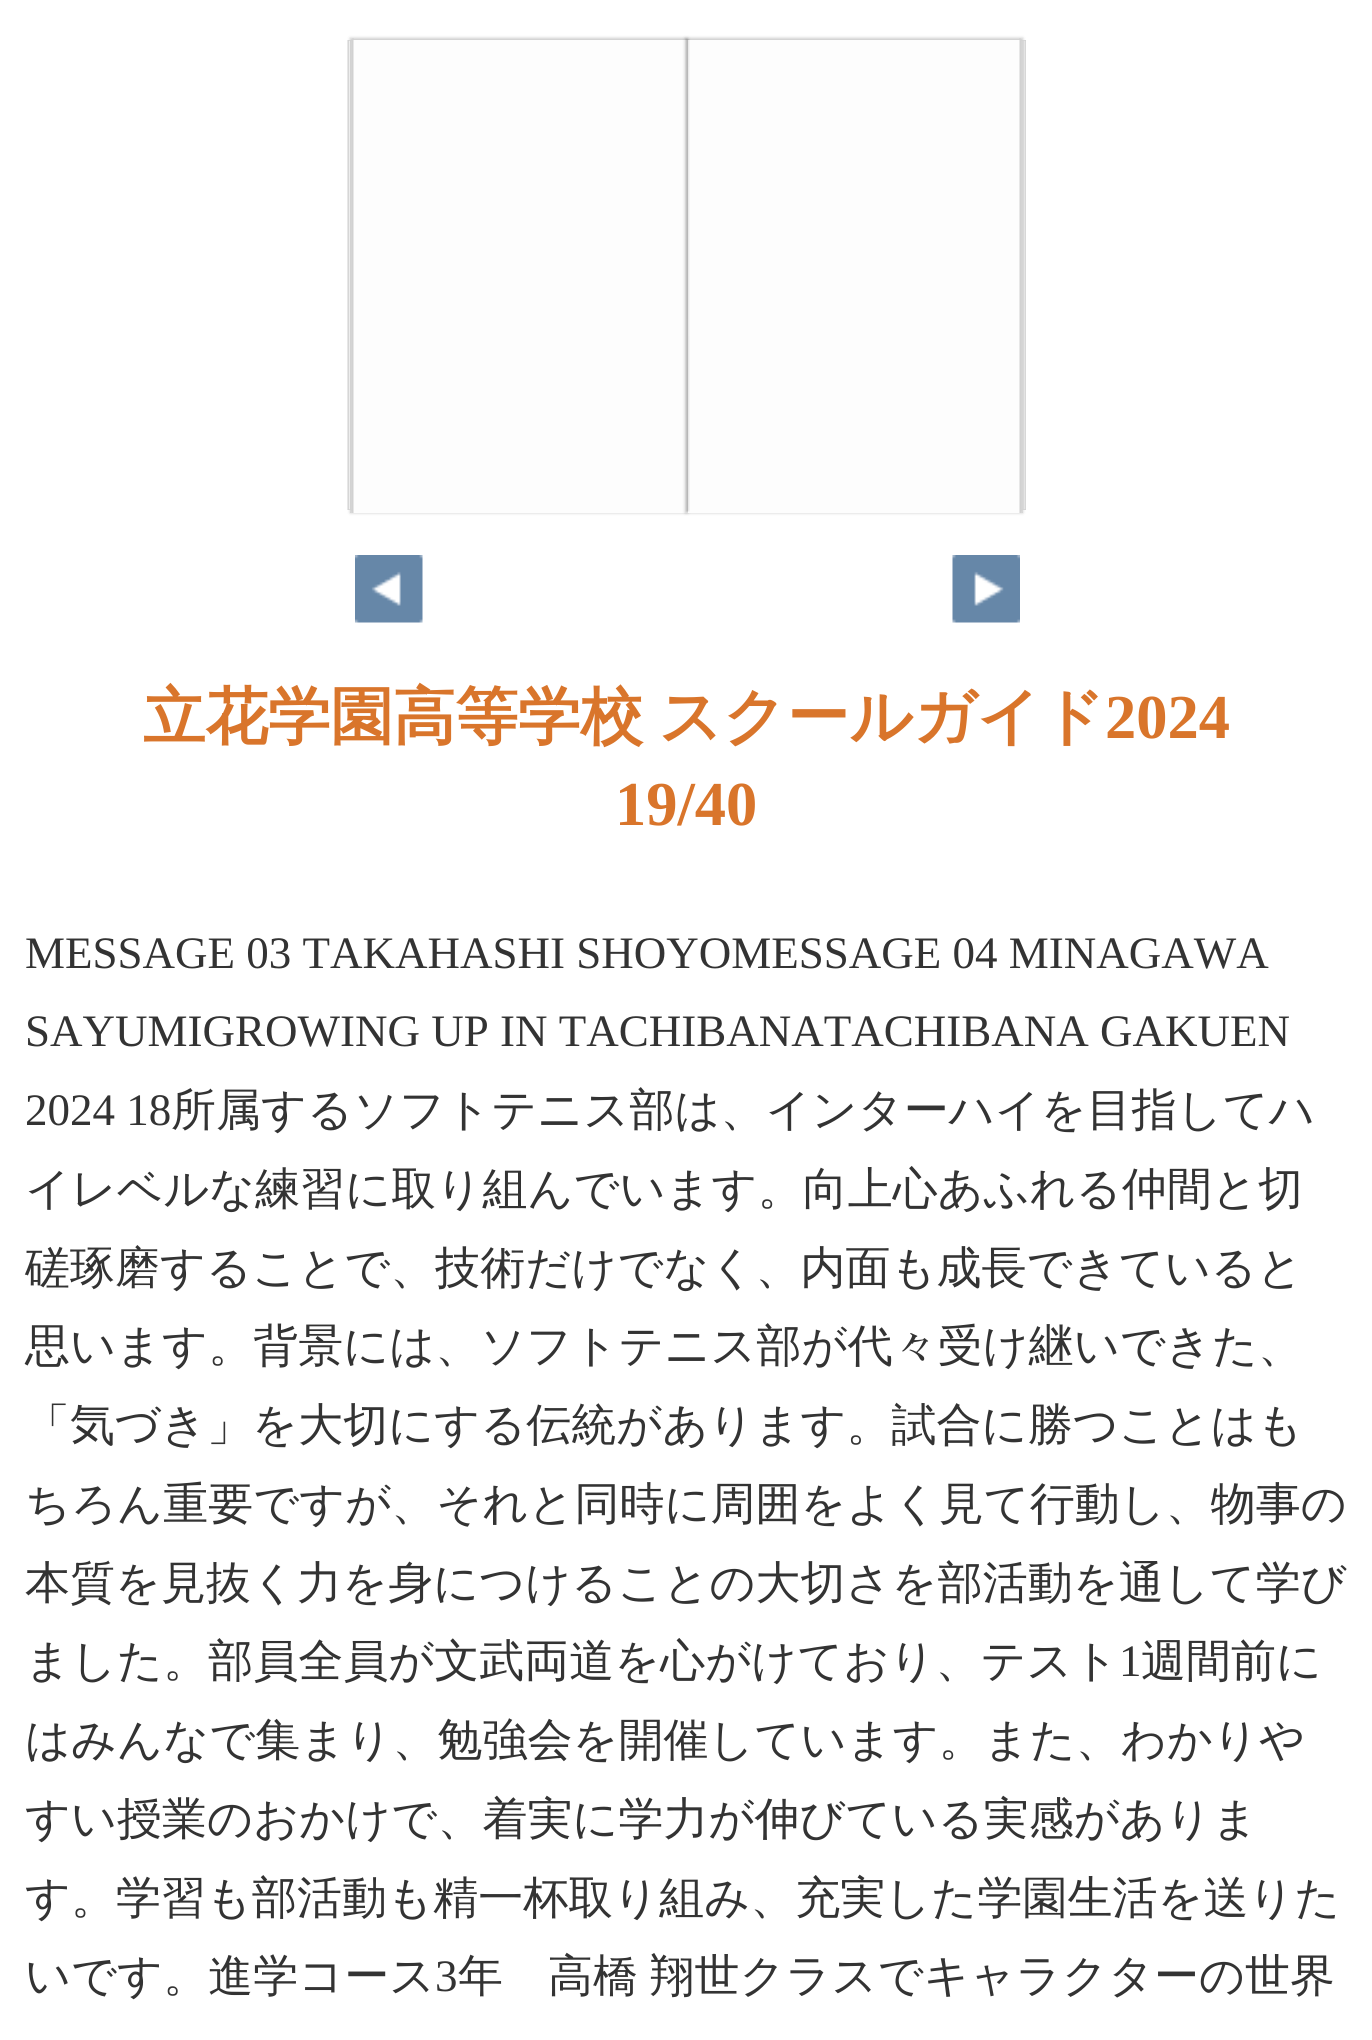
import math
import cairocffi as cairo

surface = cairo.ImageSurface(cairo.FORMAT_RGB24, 1372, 2040)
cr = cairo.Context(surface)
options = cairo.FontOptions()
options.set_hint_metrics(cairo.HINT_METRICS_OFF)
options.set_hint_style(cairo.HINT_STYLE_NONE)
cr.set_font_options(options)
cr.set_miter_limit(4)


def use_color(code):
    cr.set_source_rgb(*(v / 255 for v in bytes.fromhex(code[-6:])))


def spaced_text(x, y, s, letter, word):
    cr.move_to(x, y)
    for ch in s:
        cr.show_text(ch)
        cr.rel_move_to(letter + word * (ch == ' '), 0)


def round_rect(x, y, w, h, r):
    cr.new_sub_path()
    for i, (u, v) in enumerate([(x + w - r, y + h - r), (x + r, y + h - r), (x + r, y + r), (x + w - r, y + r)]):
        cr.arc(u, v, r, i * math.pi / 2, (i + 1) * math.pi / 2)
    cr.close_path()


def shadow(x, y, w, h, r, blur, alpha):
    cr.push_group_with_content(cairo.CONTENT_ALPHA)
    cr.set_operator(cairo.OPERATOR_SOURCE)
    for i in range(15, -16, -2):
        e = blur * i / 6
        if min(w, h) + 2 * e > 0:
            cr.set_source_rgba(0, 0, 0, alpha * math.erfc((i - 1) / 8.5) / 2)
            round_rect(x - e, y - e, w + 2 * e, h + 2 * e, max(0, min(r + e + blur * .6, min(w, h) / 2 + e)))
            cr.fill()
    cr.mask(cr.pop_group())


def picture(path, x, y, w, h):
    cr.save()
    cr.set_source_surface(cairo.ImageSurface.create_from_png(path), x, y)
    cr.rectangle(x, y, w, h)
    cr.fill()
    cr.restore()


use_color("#ffffff")
cr.paint()
use_color("#000000")
shadow(350, 38, 338, 475, 0, 1.5, 0.2)
use_color("#fdfdfd")
cr.rectangle(353, 40, 335, 473)
cr.fill()
cr.rectangle(350.25, 40.25, 2.5, 472.5)
use_color("#d2d2d2")
cr.set_line_width(0.5)
cr.stroke()
cr.rectangle(350.25, 40.25, 2.5, 469.5)
cr.stroke()
cr.rectangle(348.25, 40.25, 2.5, 469.5)
cr.stroke()
cr.rectangle(353.25, 38.25, -0.5, 474.5)
cr.stroke()
cr.rectangle(348.25, 40.25, 2.5, 469.5)
cr.stroke()
cr.rectangle(348.25, 40.25, -0.5, 469.5)
cr.stroke()
use_color("#000000")
shadow(685, 38, 338, 475, 0, 1.5, 0.2)
use_color("#fdfdfd")
cr.rectangle(688, 40, 332, 473)
cr.fill()
cr.rectangle(1020.25, 38.25, -0.5, 474.5)
use_color("#d2d2d2")
cr.stroke()
cr.rectangle(1020.25, 40.25, 2.5, 472.5)
cr.stroke()
cr.rectangle(1020.25, 40.25, 2.5, 469.5)
cr.stroke()
cr.rectangle(1023.25, 40.25, 2.5, 469.5)
cr.stroke()
cr.rectangle(1023.25, 40.25, 2.5, 469.5)
cr.stroke()
cr.rectangle(1025.25, 40.25, -0.5, 469.5)
cr.stroke()
picture("img1.png", 685, 38, 3, 474)
picture("img2.png", 687, 39, 3, 473)
picture("img3.png", 355, 555, 68, 68)
picture("img4.png", 952, 555, 68, 68)
cr.select_font_face("WenQuanYi Zen Hei", cairo.FONT_SLANT_NORMAL, cairo.FONT_WEIGHT_BOLD)
cr.set_font_size(62.5)
use_color("#d9752b")
spaced_text(143, 738, "立花学園高等学校 スクールガイド", 0, -3)
cr.select_font_face("Liberation Serif", cairo.FONT_SLANT_NORMAL, cairo.FONT_WEIGHT_BOLD)
cr.move_to(1105, 738)
cr.show_text("2024")
cr.move_to(615, 825)
cr.show_text("19/40")
cr.select_font_face("Liberation Serif")
cr.set_font_size(45)
use_color("#333333")
cr.move_to(25, 968)
cr.show_text("MESSAGE 03 TAKAHASHI SHOYOMESSAGE 04 MINAGAWA")
cr.move_to(25, 1046)
cr.show_text("SAYUMIGROWING UP IN TACHIBANATACHIBANA GAKUEN")
cr.move_to(25, 1125)
cr.show_text("2024 18")
cr.select_font_face("WenQuanYi Zen Hei Medium")
cr.move_to(171, 1125)
cr.show_text("所属するソフトテニス部は、インターハイを目指してハ")
cr.move_to(25, 1204)
cr.show_text("イレベルな練習に取り組んでいます。向上心あふれる仲間と切")
cr.move_to(25, 1283)
cr.show_text("磋琢磨することで、技術だけでなく、内面も成長できていると")
cr.move_to(25, 1361)
cr.show_text("思います。背景には、ソフトテニス部が代々受け継いできた、")
cr.move_to(25, 1440)
cr.show_text("「気づき」を大切にする伝統があります。試合に勝つことはも")
cr.move_to(25, 1519)
cr.show_text("ちろん重要ですが、それと同時に周囲をよく見て行動し、物事の")
cr.move_to(25, 1598)
cr.show_text("本質を見抜く力を身につけることの大切さを部活動を通して学び")
cr.move_to(25, 1676)
cr.show_text("ました。部員全員が文武両道を心がけており、テスト")
cr.select_font_face("Liberation Serif")
cr.move_to(1119, 1676)
cr.show_text("1")
cr.select_font_face("WenQuanYi Zen Hei Medium")
cr.move_to(1141, 1676)
cr.show_text("週間前に")
cr.move_to(25, 1755)
cr.show_text("はみんなで集まり、勉強会を開催しています。また、わかりや")
cr.move_to(25, 1834)
cr.show_text("すい授業のおかけで、着実に学力が伸びている実感がありま")
cr.move_to(25, 1913)
cr.show_text("す。学習も部活動も精一杯取り組み、充実した学園生活を送りた")
cr.move_to(25, 1991)
cr.show_text("いです。進学コース")
cr.select_font_face("Liberation Serif")
cr.move_to(435, 1991)
cr.show_text("3")
cr.select_font_face("WenQuanYi Zen Hei Medium")
spaced_text(458, 1991, "年　高橋 翔世クラスでキャラクターの世界", 0, -2)
surface.write_to_png("result.png")
